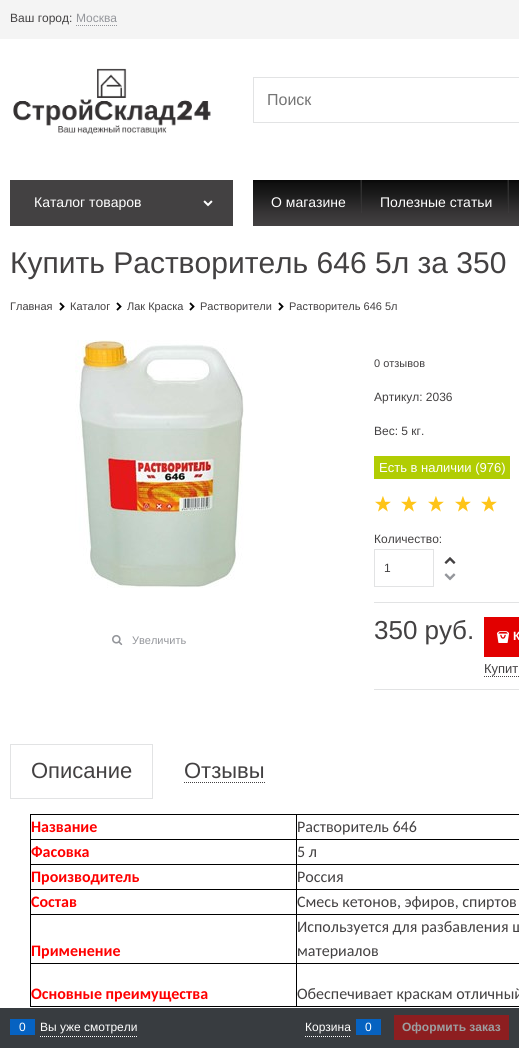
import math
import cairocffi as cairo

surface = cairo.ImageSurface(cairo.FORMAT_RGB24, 519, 1048)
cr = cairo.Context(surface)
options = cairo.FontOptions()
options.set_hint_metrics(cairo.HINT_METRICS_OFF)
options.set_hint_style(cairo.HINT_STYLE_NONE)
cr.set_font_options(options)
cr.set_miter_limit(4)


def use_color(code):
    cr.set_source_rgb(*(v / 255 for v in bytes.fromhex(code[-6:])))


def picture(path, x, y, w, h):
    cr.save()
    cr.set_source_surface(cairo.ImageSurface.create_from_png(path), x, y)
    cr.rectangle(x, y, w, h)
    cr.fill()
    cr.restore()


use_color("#ffffff")
cr.paint()
use_color("#f4f4f4")
cr.rectangle(0, 0, 519, 39)
cr.fill()
cr.select_font_face("Liberation Sans")
cr.set_font_size(12)
use_color("#434142")
cr.move_to(10, 22)
cr.show_text("Ваш город:")
use_color("#94969b")
cr.move_to(76, 22)
cr.show_text("Москва")
cr.new_path()
cr.move_to(76, 25.5)
cr.line_to(117, 25.5)
cr.set_line_width(1)
cr.set_dash([1, 1])
cr.stroke()
picture("img1.png", 13, 68, 198, 67)
cr.rectangle(253.5, 77.5, 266, 45)
use_color("#e2e3e4")
cr.set_dash([])
cr.stroke()
cr.set_font_size(16)
use_color("#757575")
cr.move_to(267, 105)
cr.show_text("Поиск")
use_color("#434142")
cr.rectangle(10, 180, 223, 46)
cr.fill()
cr.set_font_size(14)
use_color("#ffffff")
cr.move_to(34, 207)
cr.show_text("Каталог товаров")
picture("img2.png", 203, 200, 10, 7)
gradient = cairo.LinearGradient(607, 180, 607, 226)
gradient.add_color_stop_rgba(0, 0.031, 0.031, 0.031, 1)
gradient.add_color_stop_rgba(0.08, 0.063, 0.063, 0.063, 1)
gradient.add_color_stop_rgba(0.31, 0.106, 0.106, 0.106, 1)
gradient.add_color_stop_rgba(0.72, 0.216, 0.208, 0.212, 1)
gradient.add_color_stop_rgba(1, 0.263, 0.255, 0.259, 1)
cr.set_source(gradient)
cr.rectangle(253, 180, 266, 46)
cr.fill()
use_color("#ffffff")
cr.move_to(271, 207)
cr.show_text("О магазине")
gradient = cairo.LinearGradient(362, 180, 362, 226)
gradient.add_color_stop_rgba(0, 1, 1, 1, 0.14)
gradient.add_color_stop_rgba(0.72, 1, 1, 1, 0.02)
gradient.add_color_stop_rgba(1, 1, 1, 1, 0)
cr.set_source(gradient)
cr.rectangle(361, 180, 1, 33)
cr.fill()
gradient = cairo.LinearGradient(361, 180, 361, 226)
gradient.add_color_stop_rgba(0, 0.224, 0.224, 0.224, 0.39)
gradient.add_color_stop_rgba(0.17, 0.224, 0.224, 0.224, 0.33)
gradient.add_color_stop_rgba(0.61, 0.224, 0.224, 0.224, 0.12)
gradient.add_color_stop_rgba(0.96, 0.224, 0.224, 0.224, 0.01)
gradient.add_color_stop_rgba(0.98, 1, 1, 1, 0.01)
gradient.add_color_stop_rgba(1, 1, 1, 1, 0)
cr.set_source(gradient)
cr.rectangle(360, 180, 1, 24)
cr.fill()
use_color("#ffffff")
cr.move_to(380, 207)
cr.show_text("Полезные статьи")
gradient = cairo.LinearGradient(509, 180, 509, 226)
gradient.add_color_stop_rgba(0, 1, 1, 1, 0.14)
gradient.add_color_stop_rgba(0.72, 1, 1, 1, 0.02)
gradient.add_color_stop_rgba(1, 1, 1, 1, 0)
cr.set_source(gradient)
cr.rectangle(508, 180, 1, 33)
cr.fill()
gradient = cairo.LinearGradient(508, 180, 508, 226)
gradient.add_color_stop_rgba(0, 0.224, 0.224, 0.224, 0.39)
gradient.add_color_stop_rgba(0.17, 0.224, 0.224, 0.224, 0.33)
gradient.add_color_stop_rgba(0.61, 0.224, 0.224, 0.224, 0.12)
gradient.add_color_stop_rgba(0.96, 0.224, 0.224, 0.224, 0.01)
gradient.add_color_stop_rgba(0.98, 1, 1, 1, 0.01)
gradient.add_color_stop_rgba(1, 1, 1, 1, 0)
cr.set_source(gradient)
cr.rectangle(507, 180, 1, 24)
cr.fill()
cr.set_font_size(30)
use_color("#434142")
cr.move_to(10, 273)
cr.show_text("Купить Растворитель 646 5л за 350")
cr.set_font_size(11)
cr.move_to(10, 310)
cr.show_text("Главная")
picture("img3.png", 59, 302, 6, 9)
cr.move_to(70, 310)
cr.show_text("Каталог")
picture("img3.png", 116, 302, 6, 9)
cr.move_to(127, 310)
cr.show_text("Лак Краска")
picture("img3.png", 189, 302, 6, 9)
cr.move_to(200, 310)
cr.show_text("Растворители")
picture("img3.png", 278, 302, 6, 9)
cr.move_to(289, 310)
cr.show_text("Растворитель 646 5л")
picture("img4.png", 75, 340, 169, 248)
picture("img5.png", 112, 634, 11, 12)
use_color("#94969b")
cr.move_to(132, 644)
cr.show_text("Увеличить")
use_color("#434142")
cr.move_to(374, 367)
cr.show_text("0 отзывов")
cr.set_font_size(12)
cr.move_to(374, 401)
cr.show_text("Артикул: 2036")
cr.move_to(374, 435)
cr.show_text("Вес: 5 кг.")
use_color("#b1cd03")
cr.rectangle(374, 456, 136, 23)
cr.fill()
cr.set_font_size(13)
use_color("#ffffff")
cr.move_to(379, 472)
cr.show_text("Есть в наличии (976)")
picture("img6.png", 375, 496, 16, 16)
picture("img6.png", 401, 496, 16, 16)
picture("img6.png", 428, 496, 16, 16)
picture("img6.png", 455, 496, 16, 16)
picture("img6.png", 481, 496, 16, 16)
cr.set_font_size(12)
use_color("#434142")
cr.move_to(374, 543)
cr.show_text("Количество:")
cr.rectangle(374.5, 549.5, 59, 37)
use_color("#e2e3e4")
cr.stroke()
use_color("#434142")
cr.move_to(384, 572)
cr.show_text("1")
picture("img7.png", 444, 557, 12, 7)
picture("img8.png", 444, 573, 12, 8)
use_color("#e2e3e4")
cr.rectangle(374, 602, 145, 1)
cr.fill()
cr.rectangle(374, 689, 145, 1)
cr.fill()
cr.set_font_size(26)
use_color("#434142")
cr.move_to(374, 639)
cr.show_text("350 руб.")
use_color("#e20000")
cr.rectangle(484, 617, 35, 40)
cr.fill()
picture("img9.png", 497, 631, 12, 12)
cr.select_font_face("Liberation Sans", cairo.FONT_SLANT_NORMAL, cairo.FONT_WEIGHT_BOLD)
cr.set_font_size(12)
use_color("#ffffff")
cr.move_to(513, 640)
cr.show_text("К")
cr.select_font_face("Liberation Sans")
cr.set_font_size(13)
use_color("#434142")
cr.move_to(484, 673)
cr.show_text("Купит")
cr.new_path()
cr.move_to(484, 676.5)
cr.line_to(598, 676.5)
cr.set_dash([1, 1])
cr.stroke()
cr.rectangle(10.5, 744.5, 142, 54)
use_color("#e2e3e4")
cr.set_dash([])
cr.stroke()
cr.set_font_size(22)
use_color("#434142")
cr.move_to(31, 778)
cr.show_text("Описание")
cr.new_path()
cr.move_to(184, 782.5)
cr.line_to(265, 782.5)
cr.set_dash([1, 1])
cr.stroke()
cr.move_to(184, 778)
cr.show_text("Отзывы")
use_color("#000000")
cr.rectangle(30, 814, 489, 1)
cr.fill()
cr.rectangle(296, 1006, 223, 1)
cr.fill()
cr.rectangle(296, 963, 1, 44)
cr.fill()
cr.rectangle(296, 963, 223, 1)
cr.fill()
cr.rectangle(296, 914, 1, 50)
cr.fill()
cr.rectangle(296, 914, 223, 1)
cr.fill()
cr.rectangle(296, 889, 1, 26)
cr.fill()
cr.rectangle(296, 889, 223, 1)
cr.fill()
cr.rectangle(296, 864, 1, 26)
cr.fill()
cr.rectangle(296, 864, 223, 1)
cr.fill()
cr.rectangle(296, 839, 1, 26)
cr.fill()
cr.rectangle(296, 839, 223, 1)
cr.fill()
cr.rectangle(296, 814, 1, 26)
cr.fill()
cr.rectangle(30, 1006, 267, 1)
cr.fill()
cr.rectangle(30, 963, 1, 44)
cr.fill()
cr.rectangle(30, 963, 267, 1)
cr.fill()
cr.rectangle(30, 914, 1, 50)
cr.fill()
cr.rectangle(30, 914, 267, 1)
cr.fill()
cr.rectangle(30, 889, 1, 26)
cr.fill()
cr.rectangle(30, 889, 267, 1)
cr.fill()
cr.rectangle(30, 864, 1, 26)
cr.fill()
cr.rectangle(30, 864, 267, 1)
cr.fill()
cr.rectangle(30, 839, 1, 26)
cr.fill()
cr.rectangle(30, 839, 267, 1)
cr.fill()
cr.rectangle(30, 814, 1, 26)
cr.fill()
cr.select_font_face("Carlito", cairo.FONT_SLANT_NORMAL, cairo.FONT_WEIGHT_BOLD)
cr.set_font_size(16)
use_color("#ff0000")
cr.move_to(31, 832)
cr.show_text("Название")
cr.select_font_face("Carlito")
use_color("#434142")
cr.move_to(297, 832)
cr.show_text("Растворитель 646")
cr.select_font_face("Carlito", cairo.FONT_SLANT_NORMAL, cairo.FONT_WEIGHT_BOLD)
use_color("#ff0000")
cr.move_to(31, 857)
cr.show_text("Фасовка")
cr.select_font_face("Carlito")
use_color("#434142")
cr.move_to(297, 857)
cr.show_text("5 л")
cr.select_font_face("Carlito", cairo.FONT_SLANT_NORMAL, cairo.FONT_WEIGHT_BOLD)
use_color("#ff0000")
cr.move_to(31, 882)
cr.show_text("Производитель")
cr.select_font_face("Carlito")
use_color("#434142")
cr.move_to(297, 882)
cr.show_text("Россия")
cr.select_font_face("Carlito", cairo.FONT_SLANT_NORMAL, cairo.FONT_WEIGHT_BOLD)
use_color("#ff0000")
cr.move_to(31, 907)
cr.show_text("Состав")
cr.select_font_face("Carlito")
use_color("#434142")
cr.move_to(297, 907)
cr.show_text("Смесь кетонов, эфиров, спиртов")
cr.select_font_face("Carlito", cairo.FONT_SLANT_NORMAL, cairo.FONT_WEIGHT_BOLD)
use_color("#ff0000")
cr.move_to(31, 956)
cr.show_text("Применение")
cr.select_font_face("Carlito")
use_color("#434142")
cr.move_to(297, 932)
cr.show_text("Используется для разбавления ш")
cr.move_to(297, 956)
cr.show_text("материалов")
cr.select_font_face("Carlito", cairo.FONT_SLANT_NORMAL, cairo.FONT_WEIGHT_BOLD)
use_color("#ff0000")
cr.move_to(31, 999)
cr.show_text("Основные преимущества")
cr.select_font_face("Carlito")
use_color("#434142")
cr.move_to(297, 999)
cr.show_text("Обеспечивает краскам отличный")
use_color("#383c40")
cr.rectangle(0, 1008, 519, 40)
cr.fill()
cr.new_path()
cr.move_to(40, 1036.5)
cr.line_to(137, 1036.5)
use_color("#ffffff")
cr.stroke()
use_color("#0662c1")
cr.rectangle(10, 1019, 25, 16)
cr.fill()
cr.select_font_face("Liberation Sans")
cr.set_font_size(12)
use_color("#ffffff")
cr.move_to(19, 1031)
cr.show_text("0")
cr.move_to(40, 1031)
cr.show_text("Вы уже смотрели")
cr.new_path()
cr.move_to(305, 1036.5)
cr.line_to(351, 1036.5)
cr.stroke()
cr.move_to(305, 1031)
cr.show_text("Корзина")
use_color("#0662c1")
cr.rectangle(356, 1019, 25, 16)
cr.fill()
use_color("#ffffff")
cr.move_to(365, 1031)
cr.show_text("0")
use_color("#8d1e20")
cr.rectangle(394, 1015, 115, 25)
cr.fill()
cr.select_font_face("Liberation Sans", cairo.FONT_SLANT_NORMAL, cairo.FONT_WEIGHT_BOLD)
use_color("#9c9ea0")
cr.move_to(402, 1031)
cr.show_text("Оформить заказ")
surface.write_to_png("result.png")
